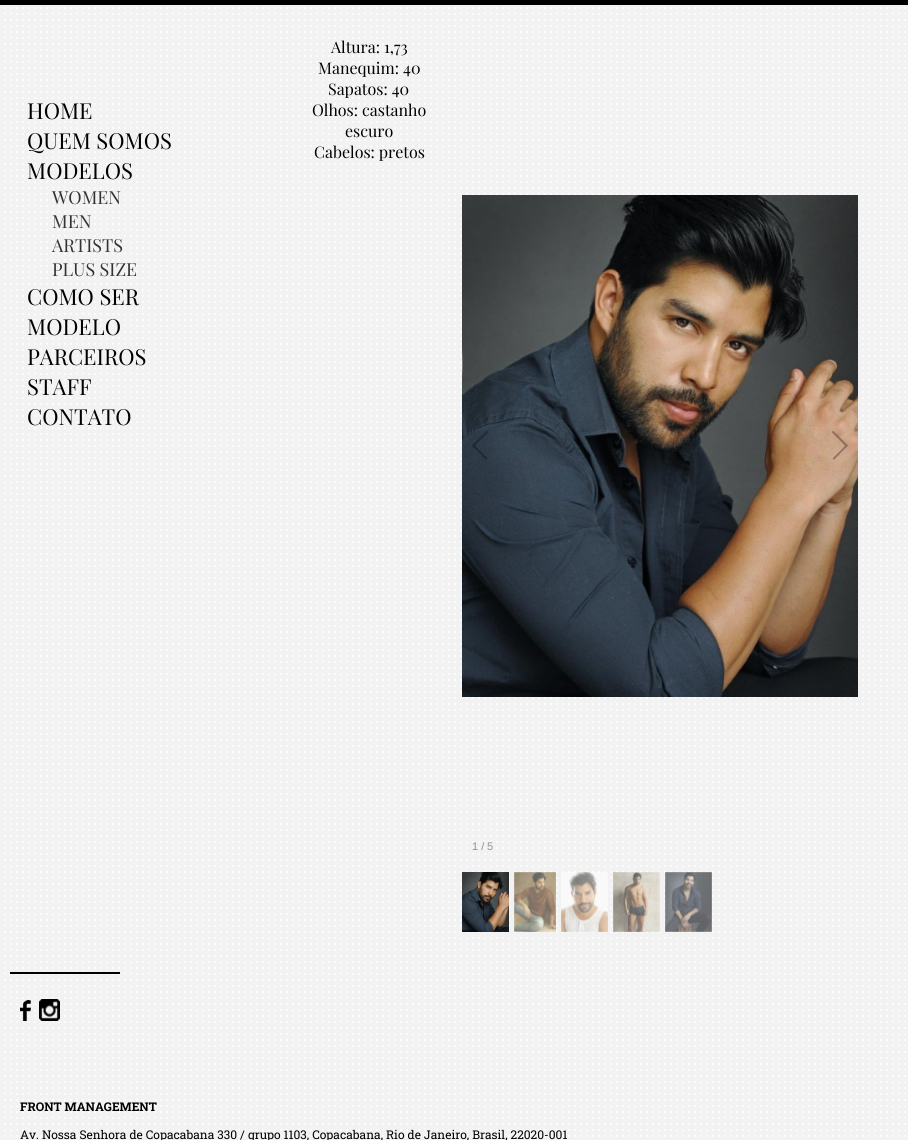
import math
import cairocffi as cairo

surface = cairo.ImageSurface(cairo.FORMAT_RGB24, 908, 1140)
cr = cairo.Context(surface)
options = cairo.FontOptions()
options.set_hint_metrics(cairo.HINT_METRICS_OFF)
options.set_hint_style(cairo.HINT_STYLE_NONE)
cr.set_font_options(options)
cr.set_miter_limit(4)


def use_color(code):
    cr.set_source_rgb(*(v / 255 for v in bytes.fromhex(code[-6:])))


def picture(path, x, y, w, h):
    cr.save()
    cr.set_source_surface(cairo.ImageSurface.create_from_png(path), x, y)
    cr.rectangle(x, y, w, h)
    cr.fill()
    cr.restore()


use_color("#ffffff")
cr.paint()
picture("img1.png", 0, 5, 908, 1135)
use_color("#000000")
cr.rectangle(0, 0, 908, 5)
cr.fill()
cr.select_font_face("Playfair Display")
cr.set_font_size(22)
cr.move_to(27, 119)
cr.show_text("HOME")
cr.move_to(27, 149)
cr.show_text("QUEM SOMOS")
cr.move_to(27, 179)
cr.show_text("MODELOS")
cr.set_font_size(18)
use_color("#333333")
cr.move_to(52, 204)
cr.show_text("WOMEN")
cr.move_to(52, 228)
cr.show_text("MEN")
cr.move_to(52, 252)
cr.show_text("ARTISTS")
cr.move_to(52, 276)
cr.show_text("PLUS SIZE")
cr.set_font_size(22)
use_color("#000000")
cr.move_to(27, 305)
cr.show_text("COMO SER")
cr.move_to(27, 335)
cr.show_text("MODELO")
cr.move_to(27, 365)
cr.show_text("PARCEIROS")
cr.move_to(27, 395)
cr.show_text("STAFF")
cr.move_to(27, 425)
cr.show_text("CONTATO")
cr.set_font_size(16)
cr.move_to(331, 53)
cr.show_text("Altura: 1,73")
cr.move_to(318, 74)
cr.show_text("Manequim: 40")
cr.move_to(328, 95)
cr.show_text("Sapatos: 40")
cr.move_to(312, 116)
cr.show_text("Olhos: castanho")
cr.move_to(345, 137)
cr.show_text("escuro")
cr.move_to(314, 158)
cr.show_text("Cabelos: pretos")
picture("img2.png", 462, 195, 396, 502)
picture("img3.png", 472, 431, 16, 29)
picture("img4.png", 832, 431, 16, 29)
cr.select_font_face("Liberation Sans")
cr.set_font_size(11)
use_color("#919191")
cr.move_to(472, 850)
cr.show_text("1 /")
cr.move_to(487, 850)
cr.show_text("5")
picture("img5.png", 462, 872, 47, 60)
picture("img6.png", 514, 872, 42, 60)
picture("img7.png", 561, 872, 47, 60)
picture("img8.png", 613, 872, 47, 60)
picture("img9.png", 665, 872, 47, 60)
use_color("#000000")
cr.rectangle(10, 972, 110, 2)
cr.fill()
picture("img10.png", 20, 1000, 11, 21)
picture("img11.png", 39, 999, 21, 22)
cr.select_font_face("Roboto Slab", cairo.FONT_SLANT_NORMAL, cairo.FONT_WEIGHT_BOLD)
cr.set_font_size(12)
cr.move_to(20, 1111)
cr.show_text("FRONT MANAGEMENT")
cr.select_font_face("Roboto Slab")
cr.move_to(20, 1139)
cr.show_text("Av. Nossa Senhora de Copacabana 330 / grupo 1103, Copacabana, Rio de Janeiro, Brasil, 22020-001")
surface.write_to_png("result.png")
